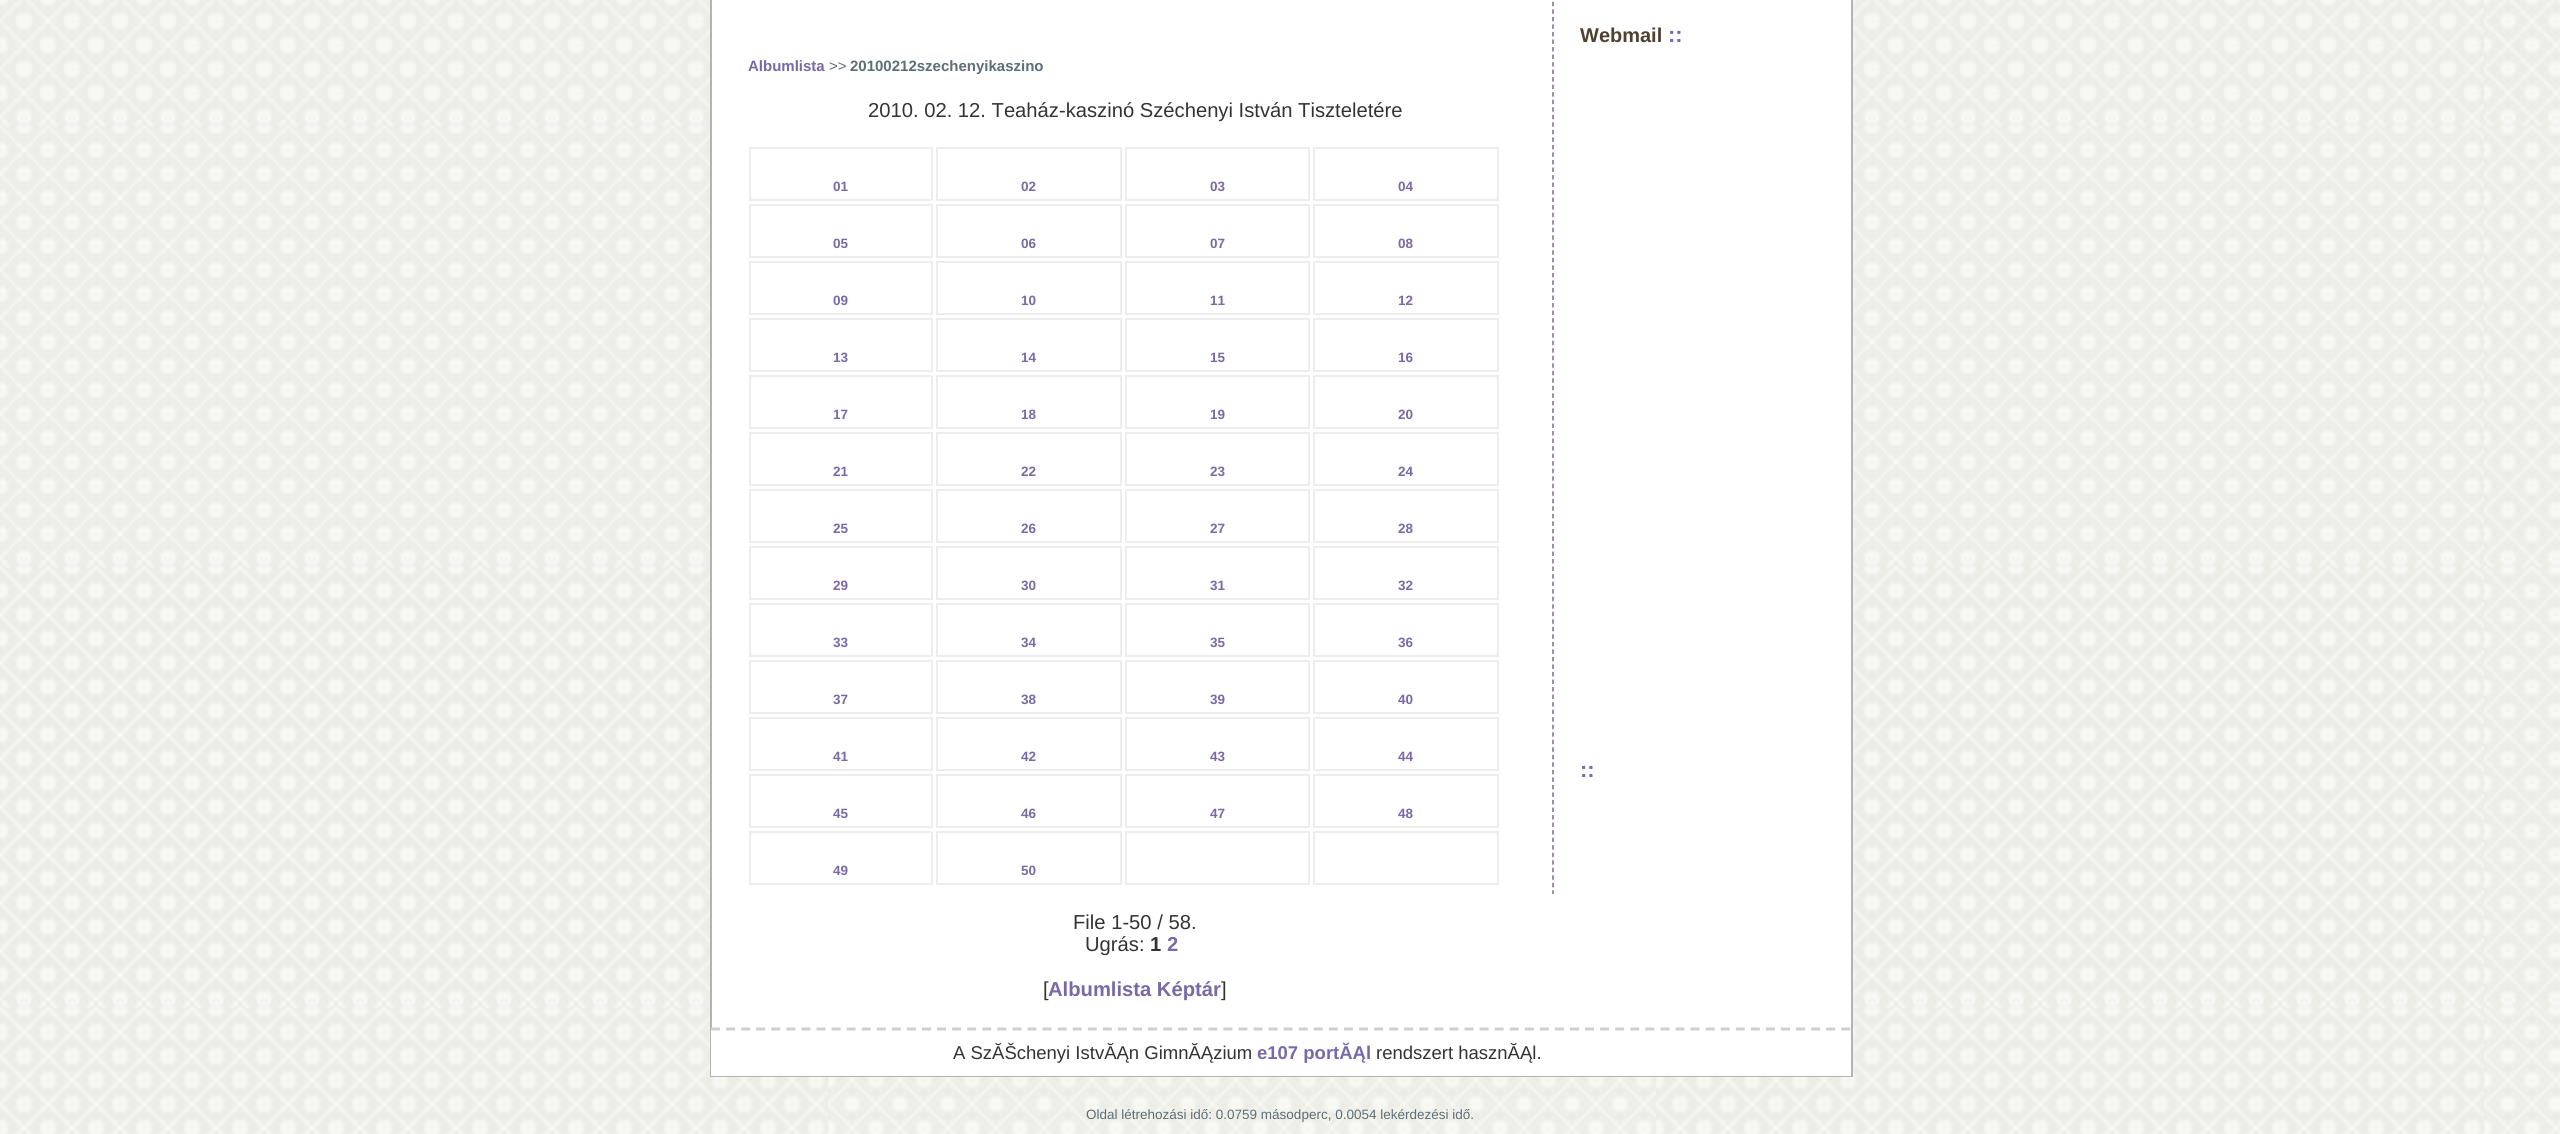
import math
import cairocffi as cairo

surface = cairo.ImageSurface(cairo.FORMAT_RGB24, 2560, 1134)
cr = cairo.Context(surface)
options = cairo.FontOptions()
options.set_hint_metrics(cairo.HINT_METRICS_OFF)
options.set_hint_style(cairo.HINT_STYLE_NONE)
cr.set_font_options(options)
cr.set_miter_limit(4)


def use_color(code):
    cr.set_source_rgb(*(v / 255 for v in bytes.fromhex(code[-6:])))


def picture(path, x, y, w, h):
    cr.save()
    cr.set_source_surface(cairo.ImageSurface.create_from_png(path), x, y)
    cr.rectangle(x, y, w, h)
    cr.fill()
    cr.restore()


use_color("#ffffff")
cr.paint()
picture("img1.png", 0, 0, 2560, 1134)
use_color("#ffffff")
cr.rectangle(712, 0, 1139, 1028)
cr.fill()
cr.rectangle(711, -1, 1141, 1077)
use_color("#b3b3b7")
cr.stroke()
cr.select_font_face("Liberation Sans", cairo.FONT_SLANT_NORMAL, cairo.FONT_WEIGHT_BOLD)
cr.set_font_size(15)
use_color("#7969a6")
cr.move_to(748, 71)
cr.show_text("Albumlista")
cr.select_font_face("Liberation Sans")
use_color("#5d6e75")
cr.move_to(829, 71)
cr.show_text(">>")
cr.select_font_face("Liberation Sans", cairo.FONT_SLANT_NORMAL, cairo.FONT_WEIGHT_BOLD)
cr.move_to(850, 71)
cr.show_text("20100212szechenyikaszino")
cr.select_font_face("Liberation Sans")
cr.set_font_size(20.2)
use_color("#333333")
cr.move_to(868, 117)
cr.show_text("2010. 02. 12. Teaház-kaszinó Széchenyi István Tiszteletére")
cr.rectangle(750, 148, 182, 52)
use_color("#ededed")
cr.stroke()
cr.select_font_face("Liberation Sans", cairo.FONT_SLANT_NORMAL, cairo.FONT_WEIGHT_BOLD)
cr.set_font_size(13.5)
use_color("#7969a6")
cr.move_to(833, 191)
cr.show_text("01")
cr.rectangle(937, 148, 184, 52)
use_color("#ededed")
cr.stroke()
use_color("#7969a6")
cr.move_to(1021, 191)
cr.show_text("02")
cr.rectangle(1126, 148, 183, 52)
use_color("#ededed")
cr.stroke()
use_color("#7969a6")
cr.move_to(1210, 191)
cr.show_text("03")
cr.rectangle(1314, 148, 184, 52)
use_color("#ededed")
cr.stroke()
use_color("#7969a6")
cr.move_to(1398, 191)
cr.show_text("04")
cr.rectangle(750, 205, 182, 52)
use_color("#ededed")
cr.stroke()
use_color("#7969a6")
cr.move_to(833, 248)
cr.show_text("05")
cr.rectangle(937, 205, 184, 52)
use_color("#ededed")
cr.stroke()
use_color("#7969a6")
cr.move_to(1021, 248)
cr.show_text("06")
cr.rectangle(1126, 205, 183, 52)
use_color("#ededed")
cr.stroke()
use_color("#7969a6")
cr.move_to(1210, 248)
cr.show_text("07")
cr.rectangle(1314, 205, 184, 52)
use_color("#ededed")
cr.stroke()
use_color("#7969a6")
cr.move_to(1398, 248)
cr.show_text("08")
cr.rectangle(750, 262, 182, 52)
use_color("#ededed")
cr.stroke()
use_color("#7969a6")
cr.move_to(833, 305)
cr.show_text("09")
cr.rectangle(937, 262, 184, 52)
use_color("#ededed")
cr.stroke()
use_color("#7969a6")
cr.move_to(1021, 305)
cr.show_text("10")
cr.rectangle(1126, 262, 183, 52)
use_color("#ededed")
cr.stroke()
use_color("#7969a6")
cr.move_to(1210, 305)
cr.show_text("11")
cr.rectangle(1314, 262, 184, 52)
use_color("#ededed")
cr.stroke()
use_color("#7969a6")
cr.move_to(1398, 305)
cr.show_text("12")
cr.rectangle(750, 319, 182, 52)
use_color("#ededed")
cr.stroke()
use_color("#7969a6")
cr.move_to(833, 362)
cr.show_text("13")
cr.rectangle(937, 319, 184, 52)
use_color("#ededed")
cr.stroke()
use_color("#7969a6")
cr.move_to(1021, 362)
cr.show_text("14")
cr.rectangle(1126, 319, 183, 52)
use_color("#ededed")
cr.stroke()
use_color("#7969a6")
cr.move_to(1210, 362)
cr.show_text("15")
cr.rectangle(1314, 319, 184, 52)
use_color("#ededed")
cr.stroke()
use_color("#7969a6")
cr.move_to(1398, 362)
cr.show_text("16")
cr.rectangle(750, 376, 182, 52)
use_color("#ededed")
cr.stroke()
use_color("#7969a6")
cr.move_to(833, 419)
cr.show_text("17")
cr.rectangle(937, 376, 184, 52)
use_color("#ededed")
cr.stroke()
use_color("#7969a6")
cr.move_to(1021, 419)
cr.show_text("18")
cr.rectangle(1126, 376, 183, 52)
use_color("#ededed")
cr.stroke()
use_color("#7969a6")
cr.move_to(1210, 419)
cr.show_text("19")
cr.rectangle(1314, 376, 184, 52)
use_color("#ededed")
cr.stroke()
use_color("#7969a6")
cr.move_to(1398, 419)
cr.show_text("20")
cr.rectangle(750, 433, 182, 52)
use_color("#ededed")
cr.stroke()
use_color("#7969a6")
cr.move_to(833, 476)
cr.show_text("21")
cr.rectangle(937, 433, 184, 52)
use_color("#ededed")
cr.stroke()
use_color("#7969a6")
cr.move_to(1021, 476)
cr.show_text("22")
cr.rectangle(1126, 433, 183, 52)
use_color("#ededed")
cr.stroke()
use_color("#7969a6")
cr.move_to(1210, 476)
cr.show_text("23")
cr.rectangle(1314, 433, 184, 52)
use_color("#ededed")
cr.stroke()
use_color("#7969a6")
cr.move_to(1398, 476)
cr.show_text("24")
cr.rectangle(750, 490, 182, 52)
use_color("#ededed")
cr.stroke()
use_color("#7969a6")
cr.move_to(833, 533)
cr.show_text("25")
cr.rectangle(937, 490, 184, 52)
use_color("#ededed")
cr.stroke()
use_color("#7969a6")
cr.move_to(1021, 533)
cr.show_text("26")
cr.rectangle(1126, 490, 183, 52)
use_color("#ededed")
cr.stroke()
use_color("#7969a6")
cr.move_to(1210, 533)
cr.show_text("27")
cr.rectangle(1314, 490, 184, 52)
use_color("#ededed")
cr.stroke()
use_color("#7969a6")
cr.move_to(1398, 533)
cr.show_text("28")
cr.rectangle(750, 547, 182, 52)
use_color("#ededed")
cr.stroke()
use_color("#7969a6")
cr.move_to(833, 590)
cr.show_text("29")
cr.rectangle(937, 547, 184, 52)
use_color("#ededed")
cr.stroke()
use_color("#7969a6")
cr.move_to(1021, 590)
cr.show_text("30")
cr.rectangle(1126, 547, 183, 52)
use_color("#ededed")
cr.stroke()
use_color("#7969a6")
cr.move_to(1210, 590)
cr.show_text("31")
cr.rectangle(1314, 547, 184, 52)
use_color("#ededed")
cr.stroke()
use_color("#7969a6")
cr.move_to(1398, 590)
cr.show_text("32")
cr.rectangle(750, 604, 182, 52)
use_color("#ededed")
cr.stroke()
use_color("#7969a6")
cr.move_to(833, 647)
cr.show_text("33")
cr.rectangle(937, 604, 184, 52)
use_color("#ededed")
cr.stroke()
use_color("#7969a6")
cr.move_to(1021, 647)
cr.show_text("34")
cr.rectangle(1126, 604, 183, 52)
use_color("#ededed")
cr.stroke()
use_color("#7969a6")
cr.move_to(1210, 647)
cr.show_text("35")
cr.rectangle(1314, 604, 184, 52)
use_color("#ededed")
cr.stroke()
use_color("#7969a6")
cr.move_to(1398, 647)
cr.show_text("36")
cr.rectangle(750, 661, 182, 52)
use_color("#ededed")
cr.stroke()
use_color("#7969a6")
cr.move_to(833, 704)
cr.show_text("37")
cr.rectangle(937, 661, 184, 52)
use_color("#ededed")
cr.stroke()
use_color("#7969a6")
cr.move_to(1021, 704)
cr.show_text("38")
cr.rectangle(1126, 661, 183, 52)
use_color("#ededed")
cr.stroke()
use_color("#7969a6")
cr.move_to(1210, 704)
cr.show_text("39")
cr.rectangle(1314, 661, 184, 52)
use_color("#ededed")
cr.stroke()
use_color("#7969a6")
cr.move_to(1398, 704)
cr.show_text("40")
cr.rectangle(750, 718, 182, 52)
use_color("#ededed")
cr.stroke()
use_color("#7969a6")
cr.move_to(833, 761)
cr.show_text("41")
cr.rectangle(937, 718, 184, 52)
use_color("#ededed")
cr.stroke()
use_color("#7969a6")
cr.move_to(1021, 761)
cr.show_text("42")
cr.rectangle(1126, 718, 183, 52)
use_color("#ededed")
cr.stroke()
use_color("#7969a6")
cr.move_to(1210, 761)
cr.show_text("43")
cr.rectangle(1314, 718, 184, 52)
use_color("#ededed")
cr.stroke()
use_color("#7969a6")
cr.move_to(1398, 761)
cr.show_text("44")
cr.rectangle(750, 775, 182, 52)
use_color("#ededed")
cr.stroke()
use_color("#7969a6")
cr.move_to(833, 818)
cr.show_text("45")
cr.rectangle(937, 775, 184, 52)
use_color("#ededed")
cr.stroke()
use_color("#7969a6")
cr.move_to(1021, 818)
cr.show_text("46")
cr.rectangle(1126, 775, 183, 52)
use_color("#ededed")
cr.stroke()
use_color("#7969a6")
cr.move_to(1210, 818)
cr.show_text("47")
cr.rectangle(1314, 775, 184, 52)
use_color("#ededed")
cr.stroke()
use_color("#7969a6")
cr.move_to(1398, 818)
cr.show_text("48")
cr.rectangle(750, 832, 182, 52)
use_color("#ededed")
cr.stroke()
use_color("#7969a6")
cr.move_to(833, 875)
cr.show_text("49")
cr.rectangle(937, 832, 184, 52)
use_color("#ededed")
cr.stroke()
use_color("#7969a6")
cr.move_to(1021, 875)
cr.show_text("50")
cr.rectangle(1126, 832, 183, 52)
use_color("#ededed")
cr.stroke()
cr.rectangle(1314, 832, 184, 52)
cr.stroke()
cr.select_font_face("Liberation Sans")
cr.set_font_size(20.2)
use_color("#333333")
cr.move_to(1073, 929)
cr.show_text("File 1-50 / 58.")
cr.move_to(1085, 951)
cr.show_text("Ugrás:")
cr.select_font_face("Liberation Sans", cairo.FONT_SLANT_NORMAL, cairo.FONT_WEIGHT_BOLD)
cr.move_to(1150, 951)
cr.show_text("1")
use_color("#7969a6")
cr.move_to(1167, 951)
cr.show_text("2")
cr.select_font_face("Liberation Sans")
use_color("#333333")
cr.move_to(1043, 996)
cr.show_text("[")
cr.select_font_face("Liberation Sans", cairo.FONT_SLANT_NORMAL, cairo.FONT_WEIGHT_BOLD)
use_color("#7969a6")
cr.move_to(1048, 996)
cr.show_text("Albumlista Képtár")
cr.select_font_face("Liberation Sans")
use_color("#333333")
cr.move_to(1221, 996)
cr.show_text("]")
cr.new_path()
cr.move_to(1553, -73.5)
cr.line_to(1553, 894)
use_color("#7f6798")
cr.set_line_width(1.5)
cr.set_dash([4.5, 3.03])
cr.stroke()
cr.select_font_face("Liberation Sans", cairo.FONT_SLANT_NORMAL, cairo.FONT_WEIGHT_BOLD)
cr.set_font_size(20)
use_color("#4e4130")
cr.move_to(1580, 42)
cr.show_text("Webmail")
cr.set_font_size(22)
use_color("#7969a6")
cr.move_to(1668, 42)
cr.show_text("::")
cr.move_to(1580, 777)
cr.show_text("::")
use_color("#ffffff")
cr.rectangle(711, 1028, 1140, 48)
cr.fill()
cr.new_path()
cr.move_to(711, 1029)
cr.line_to(1851, 1029)
use_color("#cfcfcf")
cr.set_line_width(3)
cr.set_dash([9, 6.07])
cr.stroke()
cr.select_font_face("Liberation Sans")
cr.set_font_size(18.5)
use_color("#333333")
cr.move_to(953, 1059)
cr.show_text("A SzĂŠchenyi IstvĂĄn GimnĂĄzium")
cr.select_font_face("Liberation Sans", cairo.FONT_SLANT_NORMAL, cairo.FONT_WEIGHT_BOLD)
use_color("#7969a6")
cr.move_to(1257, 1059)
cr.show_text("e107 portĂĄl")
cr.select_font_face("Liberation Sans")
use_color("#333333")
cr.move_to(1376, 1059)
cr.show_text("rendszert hasznĂĄl.")
cr.set_font_size(13.5)
use_color("#5d6e75")
cr.move_to(1086, 1119)
cr.show_text("Oldal létrehozási idő: 0.0759 másodperc, 0.0054 lekérdezési idő.")
surface.write_to_png("result.png")
